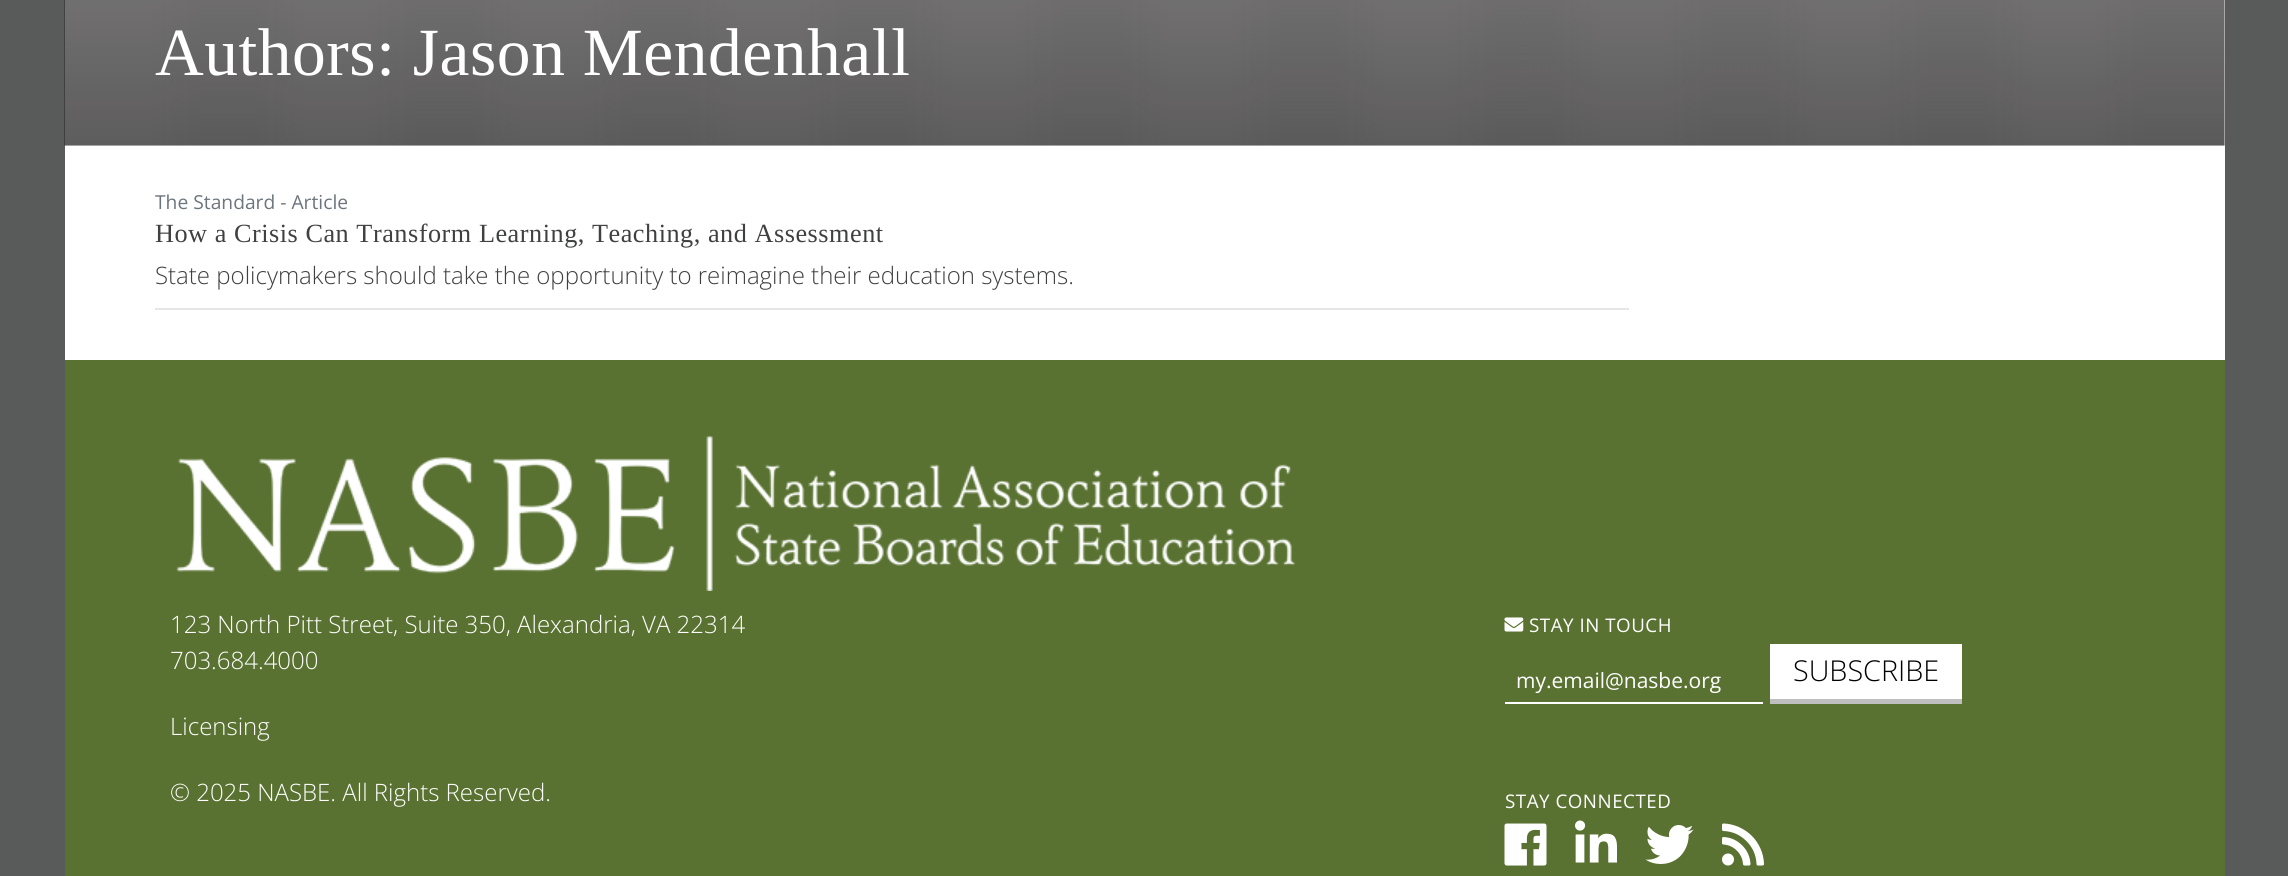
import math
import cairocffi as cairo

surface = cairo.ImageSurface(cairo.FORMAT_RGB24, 2288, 876)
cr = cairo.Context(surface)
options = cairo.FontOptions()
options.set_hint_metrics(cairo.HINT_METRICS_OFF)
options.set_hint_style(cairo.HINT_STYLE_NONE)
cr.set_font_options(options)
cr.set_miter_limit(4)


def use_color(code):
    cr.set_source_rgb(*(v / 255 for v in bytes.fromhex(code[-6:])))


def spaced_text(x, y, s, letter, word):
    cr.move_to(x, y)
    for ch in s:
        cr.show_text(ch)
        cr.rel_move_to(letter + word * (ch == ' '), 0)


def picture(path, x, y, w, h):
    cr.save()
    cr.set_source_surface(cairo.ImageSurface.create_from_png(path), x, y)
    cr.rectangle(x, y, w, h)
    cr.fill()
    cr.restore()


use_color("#585b5a")
cr.paint()
use_color("#ffffff")
cr.rectangle(65, 146, 2160, 214)
cr.fill()
use_color("#ebe8e8")
cr.rectangle(65, 0, 2160, 146)
cr.fill()
picture("img1.png", 64, 0, 2161, 146)
cr.select_font_face("Liberation Serif")
cr.set_font_size(67.5)
use_color("#ffffff")
spaced_text(155, 75, "Authors: Jason Mendenhall", 0.52, 0)
cr.select_font_face("Open Sans")
cr.set_font_size(19.25)
use_color("#6c757d")
cr.move_to(155, 209)
cr.show_text("The Standard - Article")
cr.select_font_face("Liberation Serif")
cr.set_font_size(26.25)
use_color("#3f4140")
spaced_text(155, 242, "How a Crisis Can Transform Learning, Teaching, and Assessment", 0.52, 0)
cr.select_font_face("Open Sans Light")
cr.set_font_size(24)
cr.move_to(155, 284)
cr.show_text("State policymakers should take the opportunity to reimagine their education systems.")
use_color("#e6e6e6")
cr.rectangle(155, 308, 1474, 2)
cr.fill()
use_color("#597231")
cr.rectangle(65, 360, 2160, 516)
cr.fill()
picture("img2.png", 176, 436, 1119, 155)
use_color("#ffffff")
cr.move_to(170, 633)
cr.show_text("123 North Pitt Street, Suite 350, Alexandria, VA 22314")
cr.move_to(170, 669)
cr.show_text("703.684.4000")
cr.move_to(170, 735)
cr.show_text("Licensing")
cr.move_to(170, 801)
cr.show_text("© 2025 NASBE. All Rights Reserved.")
picture("img3.png", 1504, 617, 20, 15)
cr.select_font_face("Open Sans")
cr.set_font_size(18.75)
spaced_text(1529, 632, "STAY IN TOUCH", 0.52, 0)
cr.rectangle(1505, 702, 258, 2)
cr.fill()
cr.set_font_size(21)
cr.move_to(1516, 688)
cr.show_text("my.email@nasbe.org")
cr.rectangle(1770, 644, 192, 55)
cr.fill()
use_color("#bfbfbf")
cr.rectangle(1770, 699, 192, 5)
cr.fill()
cr.select_font_face("Open Sans Light")
cr.set_font_size(28.75)
use_color("#000000")
cr.move_to(1793, 681)
cr.show_text("SUBSCRIBE")
cr.select_font_face("Open Sans")
cr.set_font_size(18.75)
use_color("#ffffff")
spaced_text(1505, 808, "STAY CONNECTED", 0.52, 0)
picture("img4.png", 1504, 823, 43, 43)
picture("img5.png", 1575, 820, 42, 43)
picture("img6.png", 1645, 825, 49, 39)
picture("img7.png", 1722, 823, 42, 43)
surface.write_to_png("result.png")
